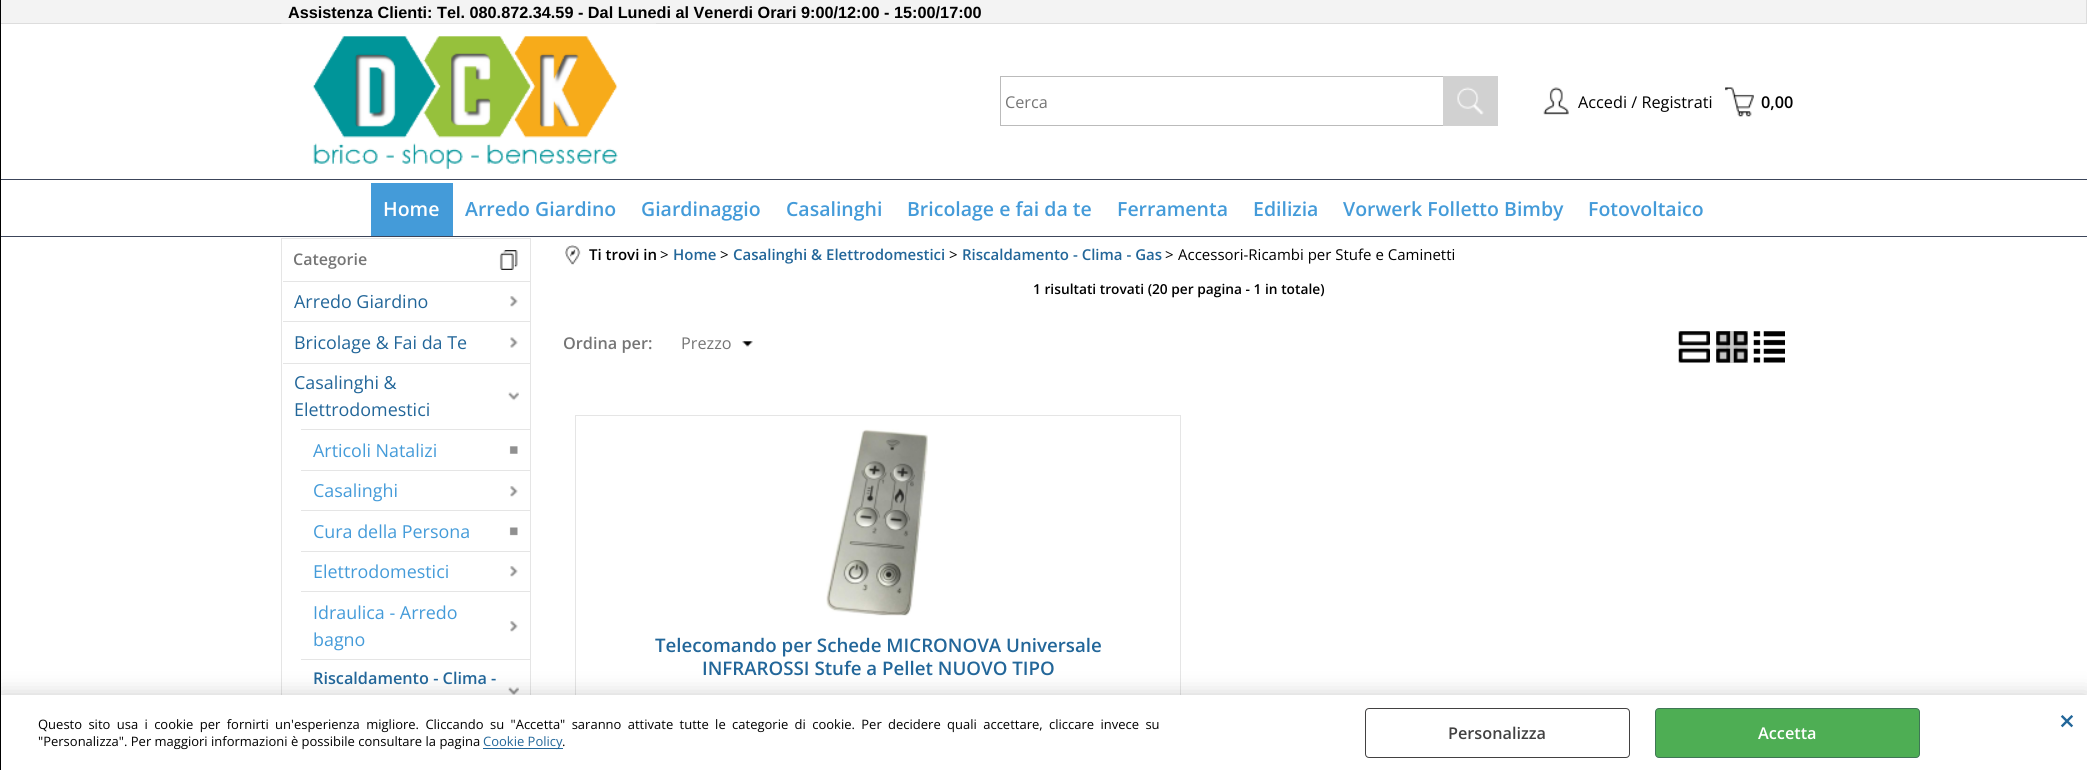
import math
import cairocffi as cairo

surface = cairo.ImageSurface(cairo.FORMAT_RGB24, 2087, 770)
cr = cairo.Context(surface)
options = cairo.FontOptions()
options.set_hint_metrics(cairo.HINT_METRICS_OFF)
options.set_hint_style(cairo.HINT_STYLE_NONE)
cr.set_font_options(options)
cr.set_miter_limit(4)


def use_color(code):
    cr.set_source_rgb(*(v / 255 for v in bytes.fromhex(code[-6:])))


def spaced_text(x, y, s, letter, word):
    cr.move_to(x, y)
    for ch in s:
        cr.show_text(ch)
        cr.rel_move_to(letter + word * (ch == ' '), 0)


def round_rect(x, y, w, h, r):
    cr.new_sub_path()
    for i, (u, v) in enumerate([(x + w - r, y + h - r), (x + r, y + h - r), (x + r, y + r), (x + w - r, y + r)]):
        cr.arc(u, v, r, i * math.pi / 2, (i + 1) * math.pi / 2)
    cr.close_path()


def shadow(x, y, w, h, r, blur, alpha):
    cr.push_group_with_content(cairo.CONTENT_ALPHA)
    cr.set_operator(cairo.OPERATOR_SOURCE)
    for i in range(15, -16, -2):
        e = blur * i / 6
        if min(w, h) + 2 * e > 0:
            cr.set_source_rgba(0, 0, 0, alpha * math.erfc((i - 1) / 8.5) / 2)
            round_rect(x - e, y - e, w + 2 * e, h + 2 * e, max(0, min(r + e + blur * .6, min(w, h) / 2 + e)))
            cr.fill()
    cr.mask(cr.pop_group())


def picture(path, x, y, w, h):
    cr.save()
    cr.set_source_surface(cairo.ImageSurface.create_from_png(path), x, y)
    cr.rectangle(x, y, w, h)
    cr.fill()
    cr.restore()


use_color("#ffffff")
cr.paint()
use_color("#dddddd")
cr.rectangle(2086, 0, 1, 24)
cr.fill()
cr.rectangle(0, 23, 2087, 1)
cr.fill()
use_color("#3c455a")
cr.rectangle(0, 179, 2087, 1)
cr.fill()
cr.rectangle(0, 236, 2087, 1)
cr.fill()
cr.rectangle(281.5, 238.5, 249, 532)
use_color("#e5e5e5")
cr.set_line_width(1)
cr.stroke()
picture("img11.png", 508, 687, 11, 8)
cr.rectangle(575.5, 415.5, 605, 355)
cr.stroke()
use_color("#000000")
shadow(0, 695, 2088, 75, 0, 11, 0.2)
use_color("#000000")
cr.rectangle(0, 0, 1, 770)
cr.fill()
use_color("#f3f3f3")
cr.rectangle(1, 0, 2085, 23)
cr.fill()
cr.select_font_face("Liberation Sans", cairo.FONT_SLANT_NORMAL, cairo.FONT_WEIGHT_BOLD)
cr.set_font_size(16.25)
use_color("#000000")
cr.move_to(288, 18)
cr.show_text("Assistenza Clienti: Tel. 080.872.34.59 - Dal Lunedi al Venerdi Orari 9:00/12:00 - 15:00/17:00")
picture("img1.png", 281, 23, 375, 147)
cr.rectangle(1000.5, 76.5, 497, 49)
use_color("#bbbbbb")
cr.stroke()
cr.select_font_face("Open Sans")
use_color("#757575")
cr.move_to(1005, 108)
cr.show_text("Cerca")
use_color("#d1d1d1")
cr.rectangle(1443, 76, 55, 50)
cr.fill()
picture("img2.png", 1457, 87, 27, 28)
picture("img3.png", 1543, 87, 26, 28)
use_color("#000000")
cr.move_to(1578, 108)
cr.show_text("Accedi / Registrati")
picture("img4.png", 1725, 87, 29, 30)
cr.select_font_face("Open Sans SemiBold")
cr.move_to(1761, 108)
cr.show_text("0,00")
use_color("#449bd9")
cr.rectangle(371, 183, 82, 53)
cr.fill()
cr.set_font_size(19.5)
use_color("#ffffff")
cr.move_to(383, 216)
cr.show_text("Home")
use_color("#449bd9")
cr.move_to(465, 216)
cr.show_text("Arredo Giardino")
cr.move_to(641, 216)
cr.show_text("Giardinaggio")
cr.move_to(786, 216)
cr.show_text("Casalinghi")
cr.move_to(907, 216)
cr.show_text("Bricolage e fai da te")
cr.move_to(1117, 216)
cr.show_text("Ferramenta")
cr.move_to(1253, 216)
cr.show_text("Edilizia")
cr.move_to(1343, 216)
cr.show_text("Vorwerk Folletto Bimby")
cr.move_to(1588, 216)
cr.show_text("Fotovoltaico")
picture("img5.png", 499, 250, 19, 20)
cr.set_font_size(16)
use_color("#757575")
cr.move_to(293, 265)
cr.show_text("Categorie")
use_color("#e5e5e5")
cr.rectangle(283, 281, 247, 1)
cr.fill()
picture("img6.png", 510, 296, 8, 11)
cr.select_font_face("Open Sans")
cr.set_font_size(17.9)
use_color("#226699")
cr.move_to(294, 308)
cr.show_text("Arredo Giardino")
use_color("#e5e5e5")
cr.rectangle(283, 321, 247, 1)
cr.fill()
picture("img7.png", 510, 337, 8, 11)
use_color("#226699")
cr.move_to(294, 349)
cr.show_text("Bricolage & Fai da Te")
use_color("#e5e5e5")
cr.rectangle(283, 363, 247, 1)
cr.fill()
picture("img8.png", 508, 392, 11, 9)
use_color("#226699")
cr.move_to(294, 389)
cr.show_text("Casalinghi &")
cr.move_to(294, 416)
cr.show_text("Elettrodomestici")
use_color("#e5e5e5")
cr.rectangle(301, 429, 229, 1)
cr.fill()
picture("img9.png", 509, 446, 9, 8)
use_color("#449bd9")
cr.move_to(313, 457)
cr.show_text("Articoli Natalizi")
use_color("#e5e5e5")
cr.rectangle(301, 470, 229, 1)
cr.fill()
picture("img6.png", 510, 486, 8, 11)
use_color("#449bd9")
cr.move_to(313, 497)
cr.show_text("Casalinghi")
use_color("#e5e5e5")
cr.rectangle(301, 510, 229, 1)
cr.fill()
picture("img10.png", 509, 527, 9, 9)
use_color("#449bd9")
cr.move_to(313, 538)
cr.show_text("Cura della Persona")
use_color("#e5e5e5")
cr.rectangle(301, 551, 229, 1)
cr.fill()
picture("img6.png", 510, 566, 8, 11)
use_color("#449bd9")
cr.move_to(313, 578)
cr.show_text("Elettrodomestici")
use_color("#e5e5e5")
cr.rectangle(301, 591, 229, 1)
cr.fill()
picture("img6.png", 510, 621, 8, 11)
use_color("#449bd9")
cr.move_to(313, 619)
cr.show_text("Idraulica - Arredo")
cr.move_to(313, 646)
cr.show_text("bagno")
use_color("#e5e5e5")
cr.rectangle(301, 659, 229, 1)
cr.fill()
cr.select_font_face("Open Sans SemiBold")
cr.set_font_size(16.25)
use_color("#226699")
cr.move_to(313, 684)
cr.show_text("Riscaldamento - Clima -")
picture("img12.png", 565, 245, 16, 20)
cr.set_font_size(15)
use_color("#000000")
cr.move_to(589, 260)
cr.show_text("Ti trovi in")
cr.select_font_face("Open Sans")
cr.move_to(660, 260)
cr.show_text(">")
cr.select_font_face("Open Sans SemiBold")
use_color("#226699")
cr.move_to(673, 260)
cr.show_text("Home")
cr.select_font_face("Open Sans")
use_color("#000000")
cr.move_to(720, 260)
cr.show_text(">")
cr.select_font_face("Open Sans SemiBold")
use_color("#226699")
cr.move_to(733, 260)
cr.show_text("Casalinghi & Elettrodomestici")
cr.select_font_face("Open Sans")
use_color("#000000")
cr.move_to(949, 260)
cr.show_text(">")
cr.select_font_face("Open Sans SemiBold")
use_color("#226699")
cr.move_to(962, 260)
cr.show_text("Riscaldamento - Clima - Gas")
cr.select_font_face("Open Sans")
use_color("#000000")
cr.move_to(1165, 260)
cr.show_text(">")
cr.move_to(1178, 260)
cr.show_text("Accessori-Ricambi per Stufe e Caminetti")
cr.select_font_face("Open Sans SemiBold")
cr.set_font_size(13.75)
cr.move_to(1033, 294)
cr.show_text("1 risultati trovati (20 per pagina - 1 in totale)")
cr.set_font_size(16.25)
use_color("#757575")
cr.move_to(563, 349)
cr.show_text("Ordina per:")
picture("img13.png", 742, 341, 11, 6)
cr.select_font_face("Open Sans")
cr.move_to(681, 349)
cr.show_text("Prezzo")
picture("img14.png", 1678, 331, 32, 32)
use_color("#c6c6c6")
cr.rectangle(1716, 331, 32, 32)
cr.fill()
picture("img15.png", 1716, 331, 32, 32)
picture("img16.png", 1753, 331, 32, 32)
picture("img17.png", 826, 429, 102, 187)
cr.select_font_face("Open Sans SemiBold")
cr.set_font_size(18.7)
use_color("#226699")
cr.move_to(655, 652)
cr.show_text("Telecomando per Schede MICRONOVA Universale")
cr.move_to(702, 675)
cr.show_text("INFRAROSSI Stufe a Pellet NUOVO TIPO")
use_color("#ffffff")
cr.rectangle(1, 695, 2086, 75)
cr.fill()
cr.select_font_face("Open Sans")
cr.set_font_size(13)
use_color("#000000")
spaced_text(38, 729, "Questo sito usa i cookie per fornirti un'esperienza migliore. Cliccando su \"Accetta\" saranno attivate tutte le categorie di cookie. Per decidere quali accettare, cliccare invece su", 0, 3)
cr.move_to(38, 746)
cr.show_text("\"Personalizza\". Per maggiori informazioni è possibile consultare la pagina")
use_color("#226699")
cr.rectangle(483, 748, 80, 1)
cr.fill()
cr.move_to(483, 746)
cr.show_text("Cookie Policy")
use_color("#000000")
cr.move_to(562, 746)
cr.show_text(".")
round_rect(1365.5, 708.5, 264, 49, 3.5)
use_color("#424141")
cr.stroke()
cr.select_font_face("Open Sans SemiBold")
cr.set_font_size(16.25)
cr.move_to(1448, 739)
cr.show_text("Personalizza")
use_color("#4eae54")
round_rect(1655.5, 708.5, 264, 49, 3.5)
cr.fill_preserve()
use_color("#3f7755")
cr.stroke()
use_color("#ffffff")
cr.move_to(1758, 739)
cr.show_text("Accetta")
cr.set_font_size(28)
use_color("#226699")
cr.move_to(2059, 731)
cr.show_text("×")
surface.write_to_png("result.png")
